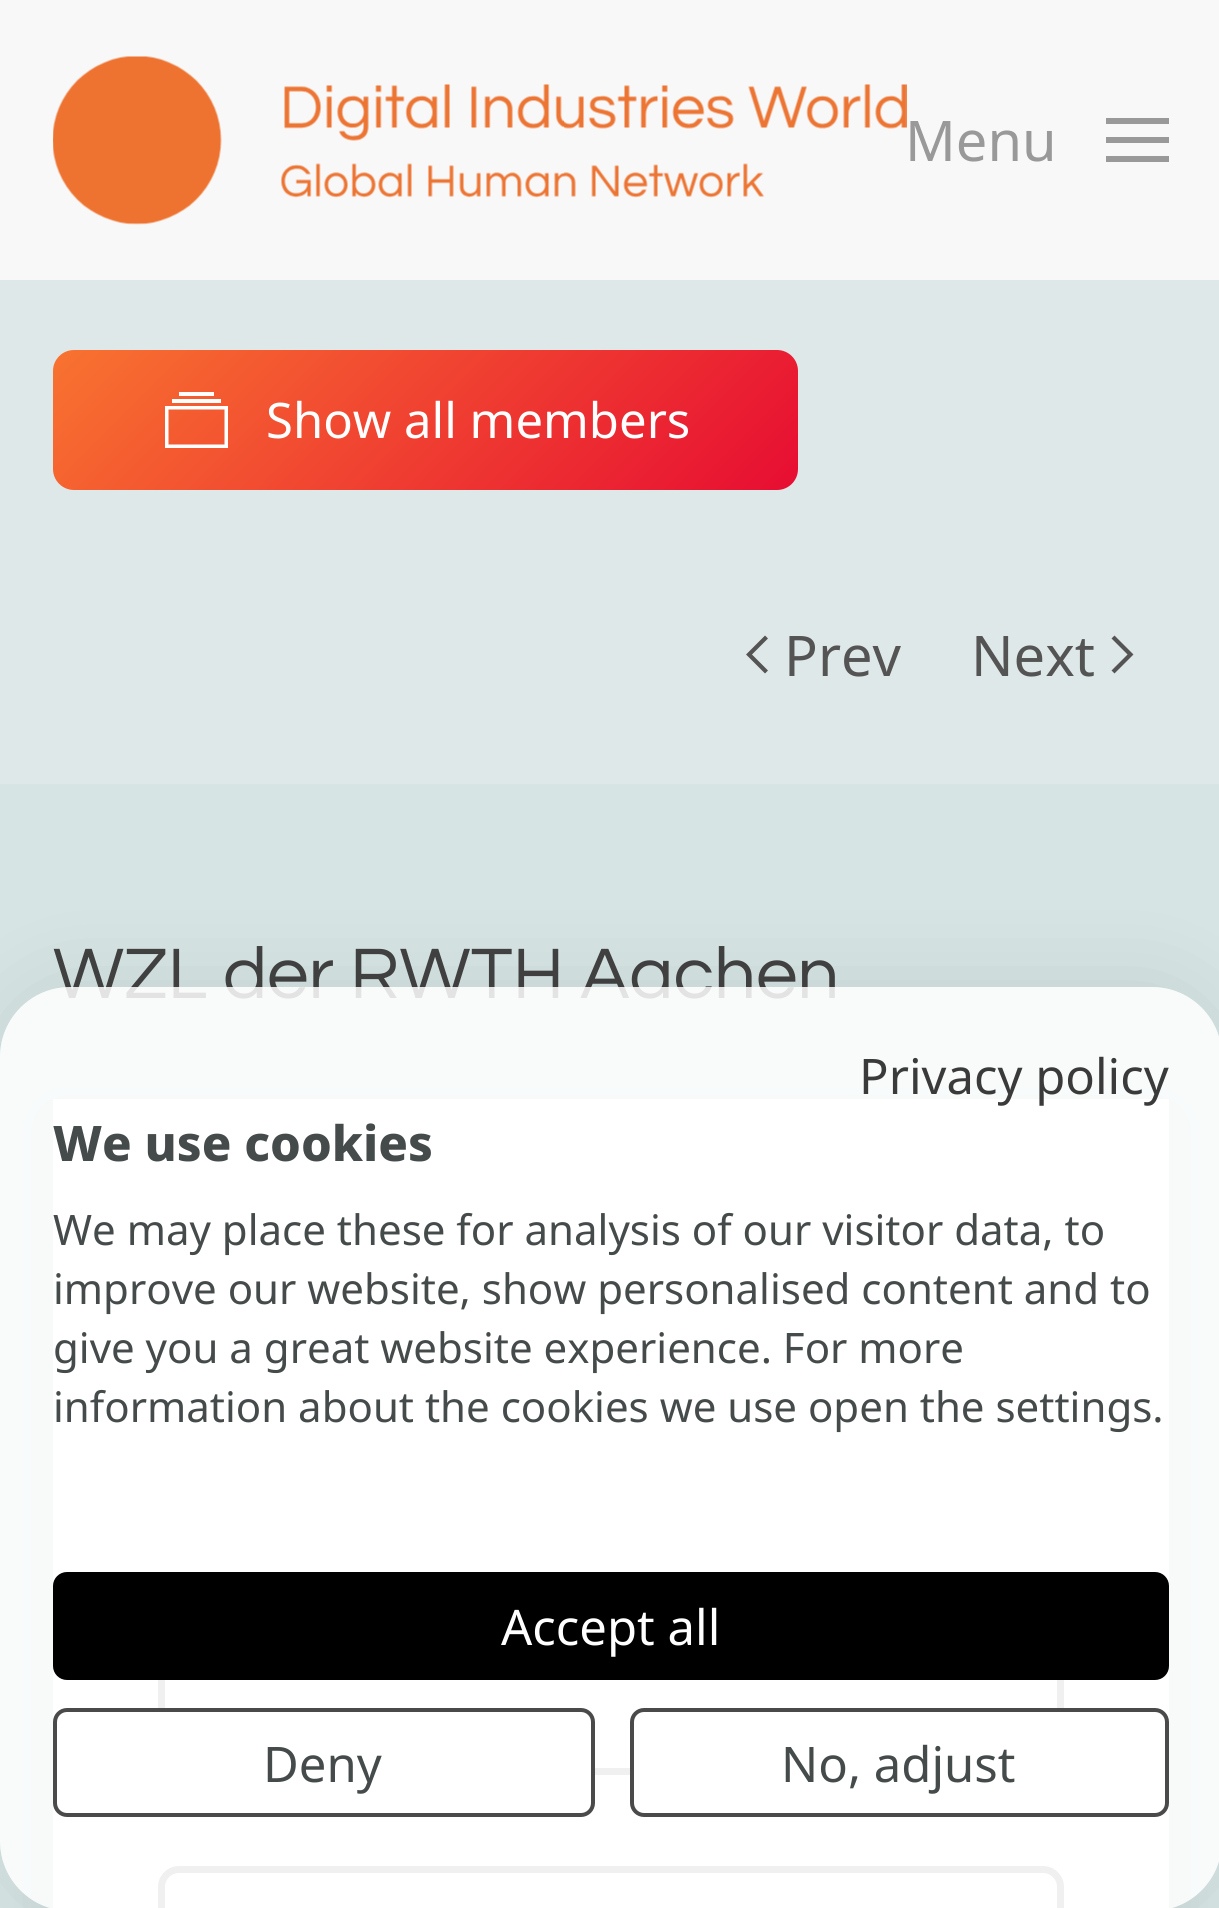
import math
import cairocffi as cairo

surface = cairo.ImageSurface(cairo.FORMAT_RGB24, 1219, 1908)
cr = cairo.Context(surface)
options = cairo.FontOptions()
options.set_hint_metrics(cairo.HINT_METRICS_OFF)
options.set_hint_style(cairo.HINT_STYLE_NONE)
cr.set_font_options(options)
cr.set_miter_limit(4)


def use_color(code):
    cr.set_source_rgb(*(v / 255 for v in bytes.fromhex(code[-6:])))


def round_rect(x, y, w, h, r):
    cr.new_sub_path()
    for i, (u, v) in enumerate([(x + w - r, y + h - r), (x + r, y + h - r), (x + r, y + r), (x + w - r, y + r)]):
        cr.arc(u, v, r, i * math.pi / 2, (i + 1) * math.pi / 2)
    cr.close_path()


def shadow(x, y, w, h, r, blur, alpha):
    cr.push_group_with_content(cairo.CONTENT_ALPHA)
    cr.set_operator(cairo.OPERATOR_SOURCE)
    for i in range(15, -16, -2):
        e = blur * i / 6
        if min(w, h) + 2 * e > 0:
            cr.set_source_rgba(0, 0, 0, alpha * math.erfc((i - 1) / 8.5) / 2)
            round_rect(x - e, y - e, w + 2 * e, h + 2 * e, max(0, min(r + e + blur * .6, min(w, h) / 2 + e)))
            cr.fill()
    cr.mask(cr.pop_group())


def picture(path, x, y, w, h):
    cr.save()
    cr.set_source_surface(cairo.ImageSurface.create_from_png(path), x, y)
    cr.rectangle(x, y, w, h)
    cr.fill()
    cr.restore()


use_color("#d6e4e4")
cr.paint()
use_color("#f8f8f8")
cr.rectangle(0, 0, 1219, 280)
cr.fill()
picture("img1.png", 53, 56, 854, 169)
cr.select_font_face("Noto Sans")
cr.set_font_size(56)
use_color("#999999")
cr.move_to(905, 161)
cr.show_text("Menu")
cr.rectangle(1106, 118, 63, 6)
cr.fill()
cr.rectangle(1106, 137, 63, 6)
cr.fill()
cr.rectangle(1106, 156, 63, 6)
cr.fill()
use_color("#dfe8e8")
cr.rectangle(0, 280, 1219, 504)
cr.fill()
gradient = cairo.LinearGradient(204, 199, 647, 641)
gradient.add_color_stop_rgba(0, 0.973, 0.451, 0.188, 1)
gradient.add_color_stop_rgba(1, 0.906, 0.051, 0.196, 1)
cr.set_source(gradient)
round_rect(53, 350, 745, 140, 21)
cr.fill()
use_color("#ffffff")
cr.rectangle(179, 392, 35, 4)
cr.fill()
cr.rectangle(172, 399, 49, 4)
cr.fill()
cr.rectangle(166.75, 407.75, 59.5, 38.5)
cr.set_line_width(3.5)
cr.stroke()
cr.set_font_size(49)
cr.move_to(266, 438)
cr.show_text("Show all members")
cr.new_path()
cr.move_to(766.5, 637)
cr.line_to(749, 654.5)
cr.line_to(766.5, 672)
use_color("#545454")
cr.set_line_width(4.2)
cr.stroke()
cr.set_font_size(56)
cr.move_to(784, 676)
cr.show_text("Prev")
cr.move_to(971, 676)
cr.show_text("Next")
cr.new_path()
cr.move_to(1113, 637)
cr.line_to(1130.5, 654.5)
cr.line_to(1113, 672)
cr.stroke()
cr.select_font_face("Questrial")
cr.set_font_size(74.25)
use_color("#424242")
cr.move_to(53, 998)
cr.show_text("WZL der RWTH Aachen")
use_color("#000000")
shadow(53, 1117, 1116, 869, 0, 26, 0.08)
use_color("#ffffff")
cr.rectangle(53, 1099, 1116, 809)
cr.fill()
cr.rectangle(161.5, 1638.5, 899, 133)
use_color("#9c9c9c")
cr.set_line_width(7)
cr.stroke()
round_rect(161.5, 1869.5, 899, 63, 17.5)
cr.stroke()
cr.save()
cr.set_fill_rule(cairo.FILL_RULE_EVEN_ODD)
cr.new_path()
cr.move_to(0, 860)
cr.line_to(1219, 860)
cr.line_to(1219, 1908)
cr.line_to(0, 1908)
cr.close_path()
cr.move_to(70, 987)
cr.line_to(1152, 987)
cr.curve_to(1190.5, 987, 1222, 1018.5, 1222, 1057)
cr.line_to(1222, 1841)
cr.curve_to(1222, 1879.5, 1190.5, 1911, 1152, 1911)
cr.line_to(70, 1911)
cr.curve_to(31.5, 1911, 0, 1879.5, 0, 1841)
cr.line_to(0, 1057)
cr.curve_to(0, 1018.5, 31.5, 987, 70, 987)
cr.close_path()
cr.clip()
use_color("#000000")
shadow(0, 987, 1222, 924, 70, 42, 0.1)
cr.restore()
cr.set_source_rgba(1, 1, 1, 0.85)
round_rect(0, 987, 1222, 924, 70)
cr.fill()
cr.select_font_face("Noto Sans")
cr.set_font_size(49)
use_color("#3a3a3a")
cr.move_to(859, 1094)
cr.show_text("Privacy policy")
cr.select_font_face("Noto Sans ExtraBold")
use_color("#454a4a")
cr.move_to(53, 1161)
cr.show_text("We use cookies")
cr.select_font_face("Noto Sans")
cr.set_font_size(42)
cr.move_to(53, 1245)
cr.show_text("We may place these for analysis of our visitor data, to")
cr.move_to(53, 1304)
cr.show_text("improve our website, show personalised content and to")
cr.move_to(53, 1363)
cr.show_text("give you a great website experience. For more")
cr.move_to(53, 1422)
cr.show_text("information about the cookies we use open the settings.")
use_color("#000000")
round_rect(55, 1574, 1112, 104, 12)
cr.fill_preserve()
cr.set_line_width(4)
cr.stroke()
cr.set_font_size(49)
use_color("#ffffff")
cr.move_to(501, 1645)
cr.show_text("Accept all")
round_rect(55, 1710, 538, 105, 12)
cr.fill_preserve()
use_color("#4a4a4a")
cr.stroke()
use_color("#454a4a")
cr.move_to(263, 1782)
cr.show_text("Deny")
use_color("#ffffff")
round_rect(632, 1710, 535, 105, 12)
cr.fill_preserve()
use_color("#4a4a4a")
cr.stroke()
use_color("#454a4a")
cr.move_to(781, 1782)
cr.show_text("No, adjust")
surface.write_to_png("result.png")
